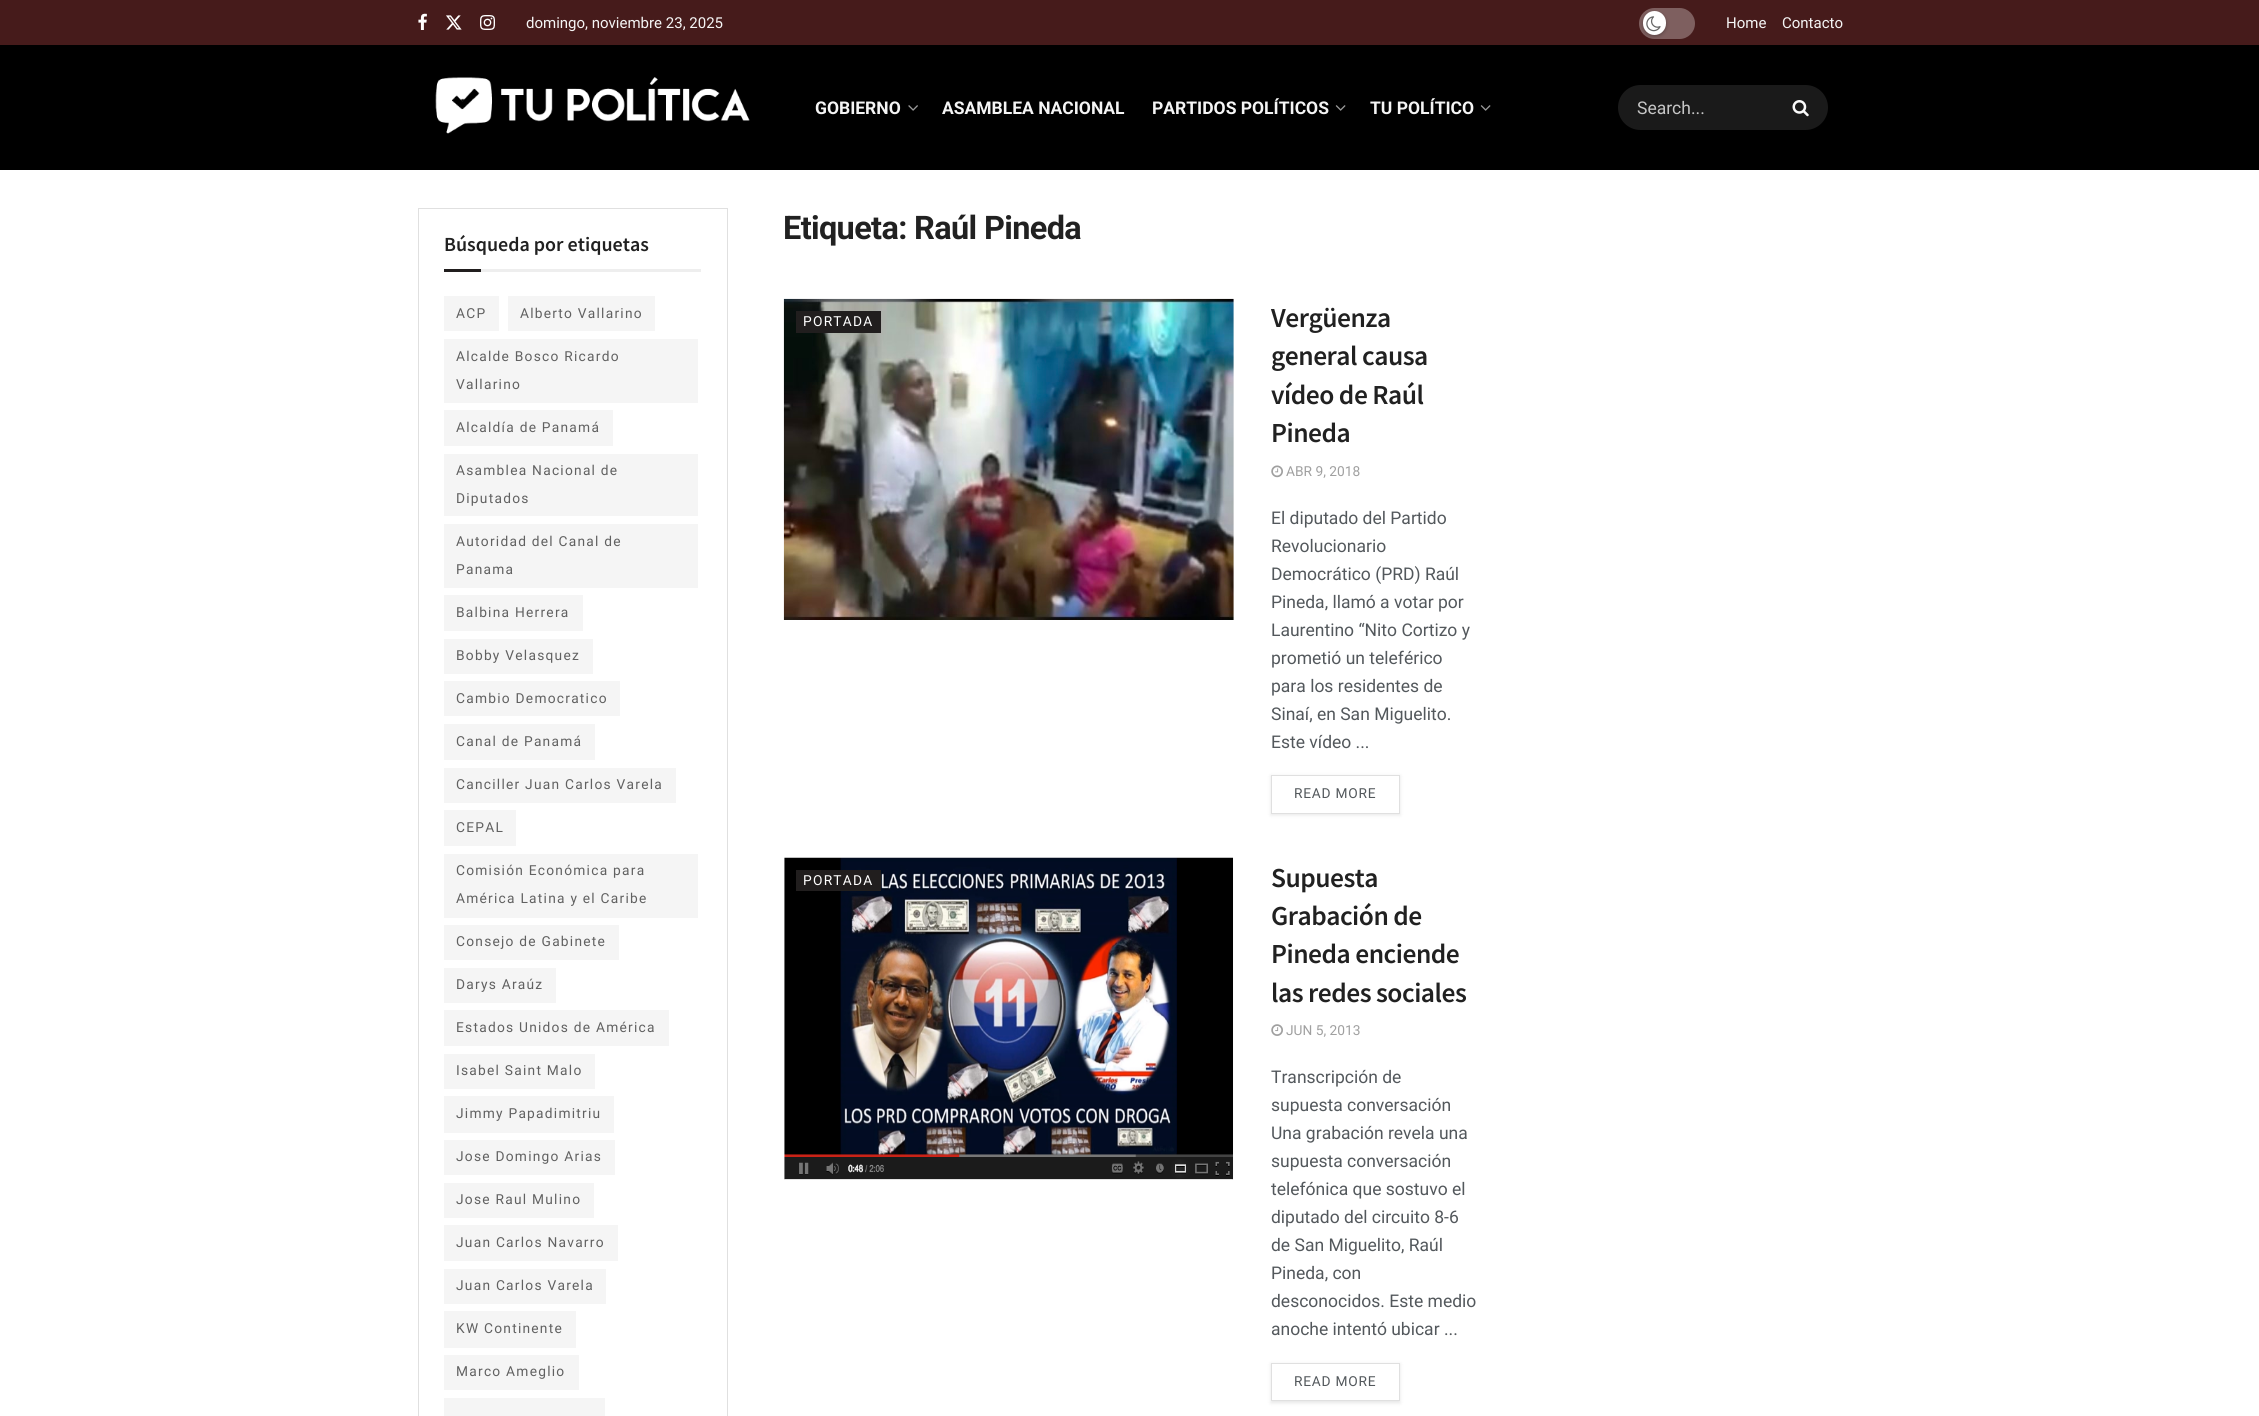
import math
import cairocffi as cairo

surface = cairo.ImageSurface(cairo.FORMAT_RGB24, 2259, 1416)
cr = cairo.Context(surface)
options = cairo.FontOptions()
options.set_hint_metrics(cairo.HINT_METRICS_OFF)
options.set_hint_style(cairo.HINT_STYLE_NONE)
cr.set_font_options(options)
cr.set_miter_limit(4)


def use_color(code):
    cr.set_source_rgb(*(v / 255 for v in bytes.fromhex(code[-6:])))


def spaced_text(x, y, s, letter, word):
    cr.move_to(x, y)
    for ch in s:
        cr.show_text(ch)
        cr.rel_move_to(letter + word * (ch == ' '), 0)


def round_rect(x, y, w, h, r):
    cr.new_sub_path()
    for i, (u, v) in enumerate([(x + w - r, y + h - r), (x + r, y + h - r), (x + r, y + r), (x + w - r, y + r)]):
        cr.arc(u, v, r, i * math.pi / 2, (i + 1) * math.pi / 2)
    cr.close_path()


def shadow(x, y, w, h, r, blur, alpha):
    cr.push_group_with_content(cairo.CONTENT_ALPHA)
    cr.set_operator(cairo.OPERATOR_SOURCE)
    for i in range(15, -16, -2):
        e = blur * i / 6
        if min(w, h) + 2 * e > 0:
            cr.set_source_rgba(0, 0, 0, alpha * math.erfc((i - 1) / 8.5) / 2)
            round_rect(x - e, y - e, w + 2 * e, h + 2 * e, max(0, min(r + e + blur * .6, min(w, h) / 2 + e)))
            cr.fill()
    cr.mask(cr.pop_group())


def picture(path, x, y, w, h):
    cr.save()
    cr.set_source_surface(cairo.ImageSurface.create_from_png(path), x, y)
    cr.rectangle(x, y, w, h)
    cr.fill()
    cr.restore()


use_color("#ffffff")
cr.paint()
use_color("#461b1b")
cr.rectangle(0, 0, 2259, 45)
cr.fill()
picture("img1.png", 418, 13, 9, 17)
picture("img2.png", 446, 15, 16, 15)
picture("img3.png", 480, 15, 15, 15)
cr.select_font_face("Roboto")
cr.set_font_size(15)
use_color("#f5f5f5")
cr.move_to(526, 28)
cr.show_text("domingo, noviembre 23, 2025")
use_color("#7e5f5f")
round_rect(1639, 8, 56, 31, 15.5)
cr.fill()
use_color("#000000")
shadow(1643, 13, 23, 23, 11.5, 2, 0.3)
use_color("#ffffff")
round_rect(1643, 11, 23, 24, 11.5)
cr.fill()
picture("img4.png", 1646, 16, 15, 16)
use_color("#f5f5f5")
cr.move_to(1726, 28)
cr.show_text("Home")
cr.move_to(1782, 28)
cr.show_text("Contacto")
use_color("#000000")
cr.rectangle(0, 45, 2259, 125)
cr.fill()
picture("img5.png", 435, 77, 315, 57)
cr.select_font_face("Roboto", cairo.FONT_SLANT_NORMAL, cairo.FONT_WEIGHT_BOLD)
cr.set_font_size(17.5)
use_color("#f5f5f5")
cr.move_to(815, 114)
cr.show_text("GOBIERNO")
picture("img6.png", 908, 105, 10, 6)
cr.move_to(942, 114)
cr.show_text("ASAMBLEA NACIONAL")
cr.move_to(1152, 114)
cr.show_text("PARTIDOS POLÍTICOS")
picture("img7.png", 1335, 105, 11, 6)
cr.move_to(1370, 114)
cr.show_text("TU POLÍTICO")
picture("img7.png", 1480, 105, 11, 6)
use_color("#1a1a1a")
round_rect(1618, 85, 210, 45, 22.5)
cr.fill()
cr.select_font_face("Roboto")
use_color("#c6c6c6")
cr.move_to(1637, 114)
cr.show_text("Search...")
picture("img8.png", 1792, 100, 17, 17)
cr.rectangle(418.5, 208.5, 309, 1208)
use_color("#e0e0e0")
cr.set_line_width(1)
cr.stroke()
use_color("#eeeeee")
cr.rectangle(481, 269, 220, 3)
cr.fill()
cr.select_font_face("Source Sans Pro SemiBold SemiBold")
cr.set_font_size(20)
use_color("#212121")
cr.move_to(444, 251)
cr.show_text("Búsqueda por etiquetas")
use_color("#211e1e")
cr.rectangle(444, 269, 37, 3)
cr.fill()
use_color("#f5f5f5")
cr.rectangle(444, 296, 55, 35)
cr.fill()
cr.select_font_face("Roboto")
cr.set_font_size(13.75)
use_color("#616161")
spaced_text(456, 318, "ACP", 1.25, 0)
use_color("#f5f5f5")
cr.rectangle(508, 296, 147, 35)
cr.fill()
use_color("#616161")
spaced_text(520, 318, "Alberto Vallarino", 1.25, 0)
use_color("#f5f5f5")
cr.rectangle(444, 339, 254, 64)
cr.fill()
use_color("#616161")
spaced_text(456, 361, "Alcalde Bosco Ricardo", 1.25, 0)
spaced_text(456, 389, "Vallarino", 1.25, 0)
use_color("#f5f5f5")
cr.rectangle(444, 410, 169, 36)
cr.fill()
use_color("#616161")
spaced_text(456, 432, "Alcaldía de Panamá", 1.25, 0)
use_color("#f5f5f5")
cr.rectangle(444, 454, 254, 62)
cr.fill()
use_color("#616161")
spaced_text(456, 475, "Asamblea Nacional de", 1.25, 0)
spaced_text(456, 503, "Diputados", 1.25, 0)
use_color("#f5f5f5")
cr.rectangle(444, 524, 254, 64)
cr.fill()
use_color("#616161")
spaced_text(456, 546, "Autoridad del Canal de", 1.25, 0)
spaced_text(456, 574, "Panama", 1.25, 0)
use_color("#f5f5f5")
cr.rectangle(444, 595, 139, 36)
cr.fill()
use_color("#616161")
spaced_text(456, 617, "Balbina Herrera", 1.25, 0)
use_color("#f5f5f5")
cr.rectangle(444, 639, 149, 35)
cr.fill()
use_color("#616161")
spaced_text(456, 660, "Bobby Velasquez", 1.25, 0)
use_color("#f5f5f5")
cr.rectangle(444, 681, 176, 35)
cr.fill()
use_color("#616161")
spaced_text(456, 703, "Cambio Democratico", 1.25, 0)
use_color("#f5f5f5")
cr.rectangle(444, 724, 151, 36)
cr.fill()
use_color("#616161")
spaced_text(456, 746, "Canal de Panamá", 1.25, 0)
use_color("#f5f5f5")
cr.rectangle(444, 768, 232, 35)
cr.fill()
use_color("#616161")
spaced_text(456, 789, "Canciller Juan Carlos Varela", 1.25, 0)
use_color("#f5f5f5")
cr.rectangle(444, 810, 72, 36)
cr.fill()
use_color("#616161")
spaced_text(456, 832, "CEPAL", 1.25, 0)
use_color("#f5f5f5")
cr.rectangle(444, 854, 254, 64)
cr.fill()
use_color("#616161")
spaced_text(456, 875, "Comisión Económica para", 1.25, 0)
spaced_text(456, 903, "América Latina y el Caribe", 1.25, 0)
use_color("#f5f5f5")
cr.rectangle(444, 925, 175, 35)
cr.fill()
use_color("#616161")
spaced_text(456, 946, "Consejo de Gabinete", 1.25, 0)
use_color("#f5f5f5")
cr.rectangle(444, 968, 112, 35)
cr.fill()
use_color("#616161")
spaced_text(456, 989, "Darys Araúz", 1.25, 0)
use_color("#f5f5f5")
cr.rectangle(444, 1010, 225, 36)
cr.fill()
use_color("#616161")
spaced_text(456, 1032, "Estados Unidos de América", 1.25, 0)
use_color("#f5f5f5")
cr.rectangle(444, 1054, 151, 35)
cr.fill()
use_color("#616161")
spaced_text(456, 1075, "Isabel Saint Malo", 1.25, 0)
use_color("#f5f5f5")
cr.rectangle(444, 1096, 170, 37)
cr.fill()
use_color("#616161")
spaced_text(456, 1118, "Jimmy Papadimitriu", 1.25, 0)
use_color("#f5f5f5")
cr.rectangle(444, 1140, 171, 35)
cr.fill()
use_color("#616161")
spaced_text(456, 1161, "Jose Domingo Arias", 1.25, 0)
use_color("#f5f5f5")
cr.rectangle(444, 1183, 150, 35)
cr.fill()
use_color("#616161")
spaced_text(456, 1204, "Jose Raul Mulino", 1.25, 0)
use_color("#f5f5f5")
cr.rectangle(444, 1225, 174, 36)
cr.fill()
use_color("#616161")
spaced_text(456, 1247, "Juan Carlos Navarro", 1.25, 0)
use_color("#f5f5f5")
cr.rectangle(444, 1269, 162, 35)
cr.fill()
use_color("#616161")
spaced_text(456, 1290, "Juan Carlos Varela", 1.25, 0)
use_color("#f5f5f5")
cr.rectangle(444, 1311, 132, 37)
cr.fill()
use_color("#616161")
spaced_text(456, 1333, "KW Continente", 1.25, 0)
use_color("#f5f5f5")
cr.rectangle(444, 1355, 135, 35)
cr.fill()
use_color("#616161")
spaced_text(456, 1376, "Marco Ameglio", 1.25, 0)
use_color("#f5f5f5")
cr.rectangle(444, 1398, 161, 18)
cr.fill()
cr.select_font_face("Roboto", cairo.FONT_SLANT_NORMAL, cairo.FONT_WEIGHT_BOLD)
cr.set_font_size(32.5)
use_color("#212121")
spaced_text(783, 239, "Etiqueta: Raúl Pineda", -0.65, 0)
use_color("#f7f7f7")
cr.rectangle(1233, 299, 1, 321)
cr.fill()
picture("img9.png", 783, 298, 451, 322)
use_color("#211e1e")
cr.rectangle(796, 311, 85, 22)
cr.fill()
cr.select_font_face("Roboto")
cr.set_font_size(13.75)
use_color("#ffffff")
spaced_text(803, 326, "PORTADA", 1.25, 0)
cr.select_font_face("Source Sans Pro SemiBold SemiBold")
cr.set_font_size(27.5)
use_color("#212121")
spaced_text(1271, 327, "Vergüenza", -0.5, 0)
spaced_text(1271, 365, "general causa", -0.5, 0)
spaced_text(1271, 404, "vídeo de Raúl", -0.5, 0)
spaced_text(1271, 442, "Pineda", -0.5, 0)
picture("img10.png", 1271, 465, 12, 13)
cr.select_font_face("Roboto")
cr.set_font_size(13.75)
use_color("#a0a0a0")
cr.move_to(1286, 476)
cr.show_text("ABR 9, 2018")
cr.set_font_size(17.5)
use_color("#53585c")
cr.move_to(1271, 524)
cr.show_text("El diputado del Partido")
cr.move_to(1271, 552)
cr.show_text("Revolucionario")
cr.move_to(1271, 580)
cr.show_text("Democrático (PRD) Raúl")
cr.move_to(1271, 608)
cr.show_text("Pineda, llamó a votar por")
cr.move_to(1271, 636)
cr.show_text("Laurentino “Nito Cortizo y")
cr.move_to(1271, 664)
cr.show_text("prometió un teleférico")
cr.move_to(1271, 692)
cr.show_text("para los residentes de")
cr.move_to(1271, 720)
cr.show_text("Sinaí, en San Miguelito.")
cr.move_to(1271, 748)
cr.show_text("Este vídeo ...")
cr.save()
cr.set_fill_rule(cairo.FILL_RULE_EVEN_ODD)
cr.new_path()
cr.move_to(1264, 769)
cr.line_to(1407, 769)
cr.line_to(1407, 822)
cr.line_to(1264, 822)
cr.close_path()
cr.move_to(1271, 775)
cr.line_to(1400, 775)
cr.line_to(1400, 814)
cr.line_to(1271, 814)
cr.close_path()
cr.clip()
use_color("#000000")
shadow(1271, 776, 129, 39, 0, 2, 0.1)
cr.restore()
cr.rectangle(1271.5, 775.5, 128, 38)
use_color("#e0e0e0")
cr.stroke()
cr.set_font_size(13.75)
use_color("#53585c")
spaced_text(1294, 798, "READ MORE", 0.75, 0)
use_color("#f7f7f7")
cr.rectangle(1233, 858, 1, 322)
cr.fill()
picture("img11.png", 784, 857, 450, 323)
use_color("#211e1e")
cr.rectangle(796, 870, 85, 21)
cr.fill()
use_color("#ffffff")
spaced_text(803, 885, "PORTADA", 1.25, 0)
cr.select_font_face("Source Sans Pro SemiBold SemiBold")
cr.set_font_size(27.5)
use_color("#212121")
spaced_text(1271, 887, "Supuesta", -0.5, 0)
spaced_text(1271, 925, "Grabación de", -0.5, 0)
spaced_text(1271, 963, "Pineda enciende", -0.5, 0)
spaced_text(1271, 1002, "las redes sociales", -0.5, 0)
picture("img12.png", 1271, 1024, 12, 12)
cr.select_font_face("Roboto")
cr.set_font_size(13.75)
use_color("#a0a0a0")
cr.move_to(1286, 1035)
cr.show_text("JUN 5, 2013")
cr.set_font_size(17.5)
use_color("#53585c")
cr.move_to(1271, 1083)
cr.show_text("Transcripción de")
cr.move_to(1271, 1111)
cr.show_text("supuesta conversación")
cr.move_to(1271, 1139)
cr.show_text("Una grabación revela una")
cr.move_to(1271, 1167)
cr.show_text("supuesta conversación")
cr.move_to(1271, 1195)
cr.show_text("telefónica que sostuvo el")
cr.move_to(1271, 1223)
cr.show_text("diputado del circuito 8-6")
cr.move_to(1271, 1251)
cr.show_text("de San Miguelito, Raúl")
cr.move_to(1271, 1279)
cr.show_text("Pineda, con")
cr.move_to(1271, 1307)
cr.show_text("desconocidos. Este medio")
cr.move_to(1271, 1335)
cr.show_text("anoche intentó ubicar ...")
cr.save()
cr.set_fill_rule(cairo.FILL_RULE_EVEN_ODD)
cr.new_path()
cr.move_to(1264, 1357)
cr.line_to(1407, 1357)
cr.line_to(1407, 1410)
cr.line_to(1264, 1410)
cr.close_path()
cr.move_to(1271, 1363)
cr.line_to(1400, 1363)
cr.line_to(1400, 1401)
cr.line_to(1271, 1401)
cr.close_path()
cr.clip()
use_color("#000000")
shadow(1271, 1364, 129, 39, 0, 2, 0.1)
cr.restore()
cr.rectangle(1271.5, 1363.5, 128, 37)
use_color("#e0e0e0")
cr.stroke()
cr.set_font_size(13.75)
use_color("#53585c")
spaced_text(1294, 1386, "READ MORE", 0.75, 0)
surface.write_to_png("result.png")
